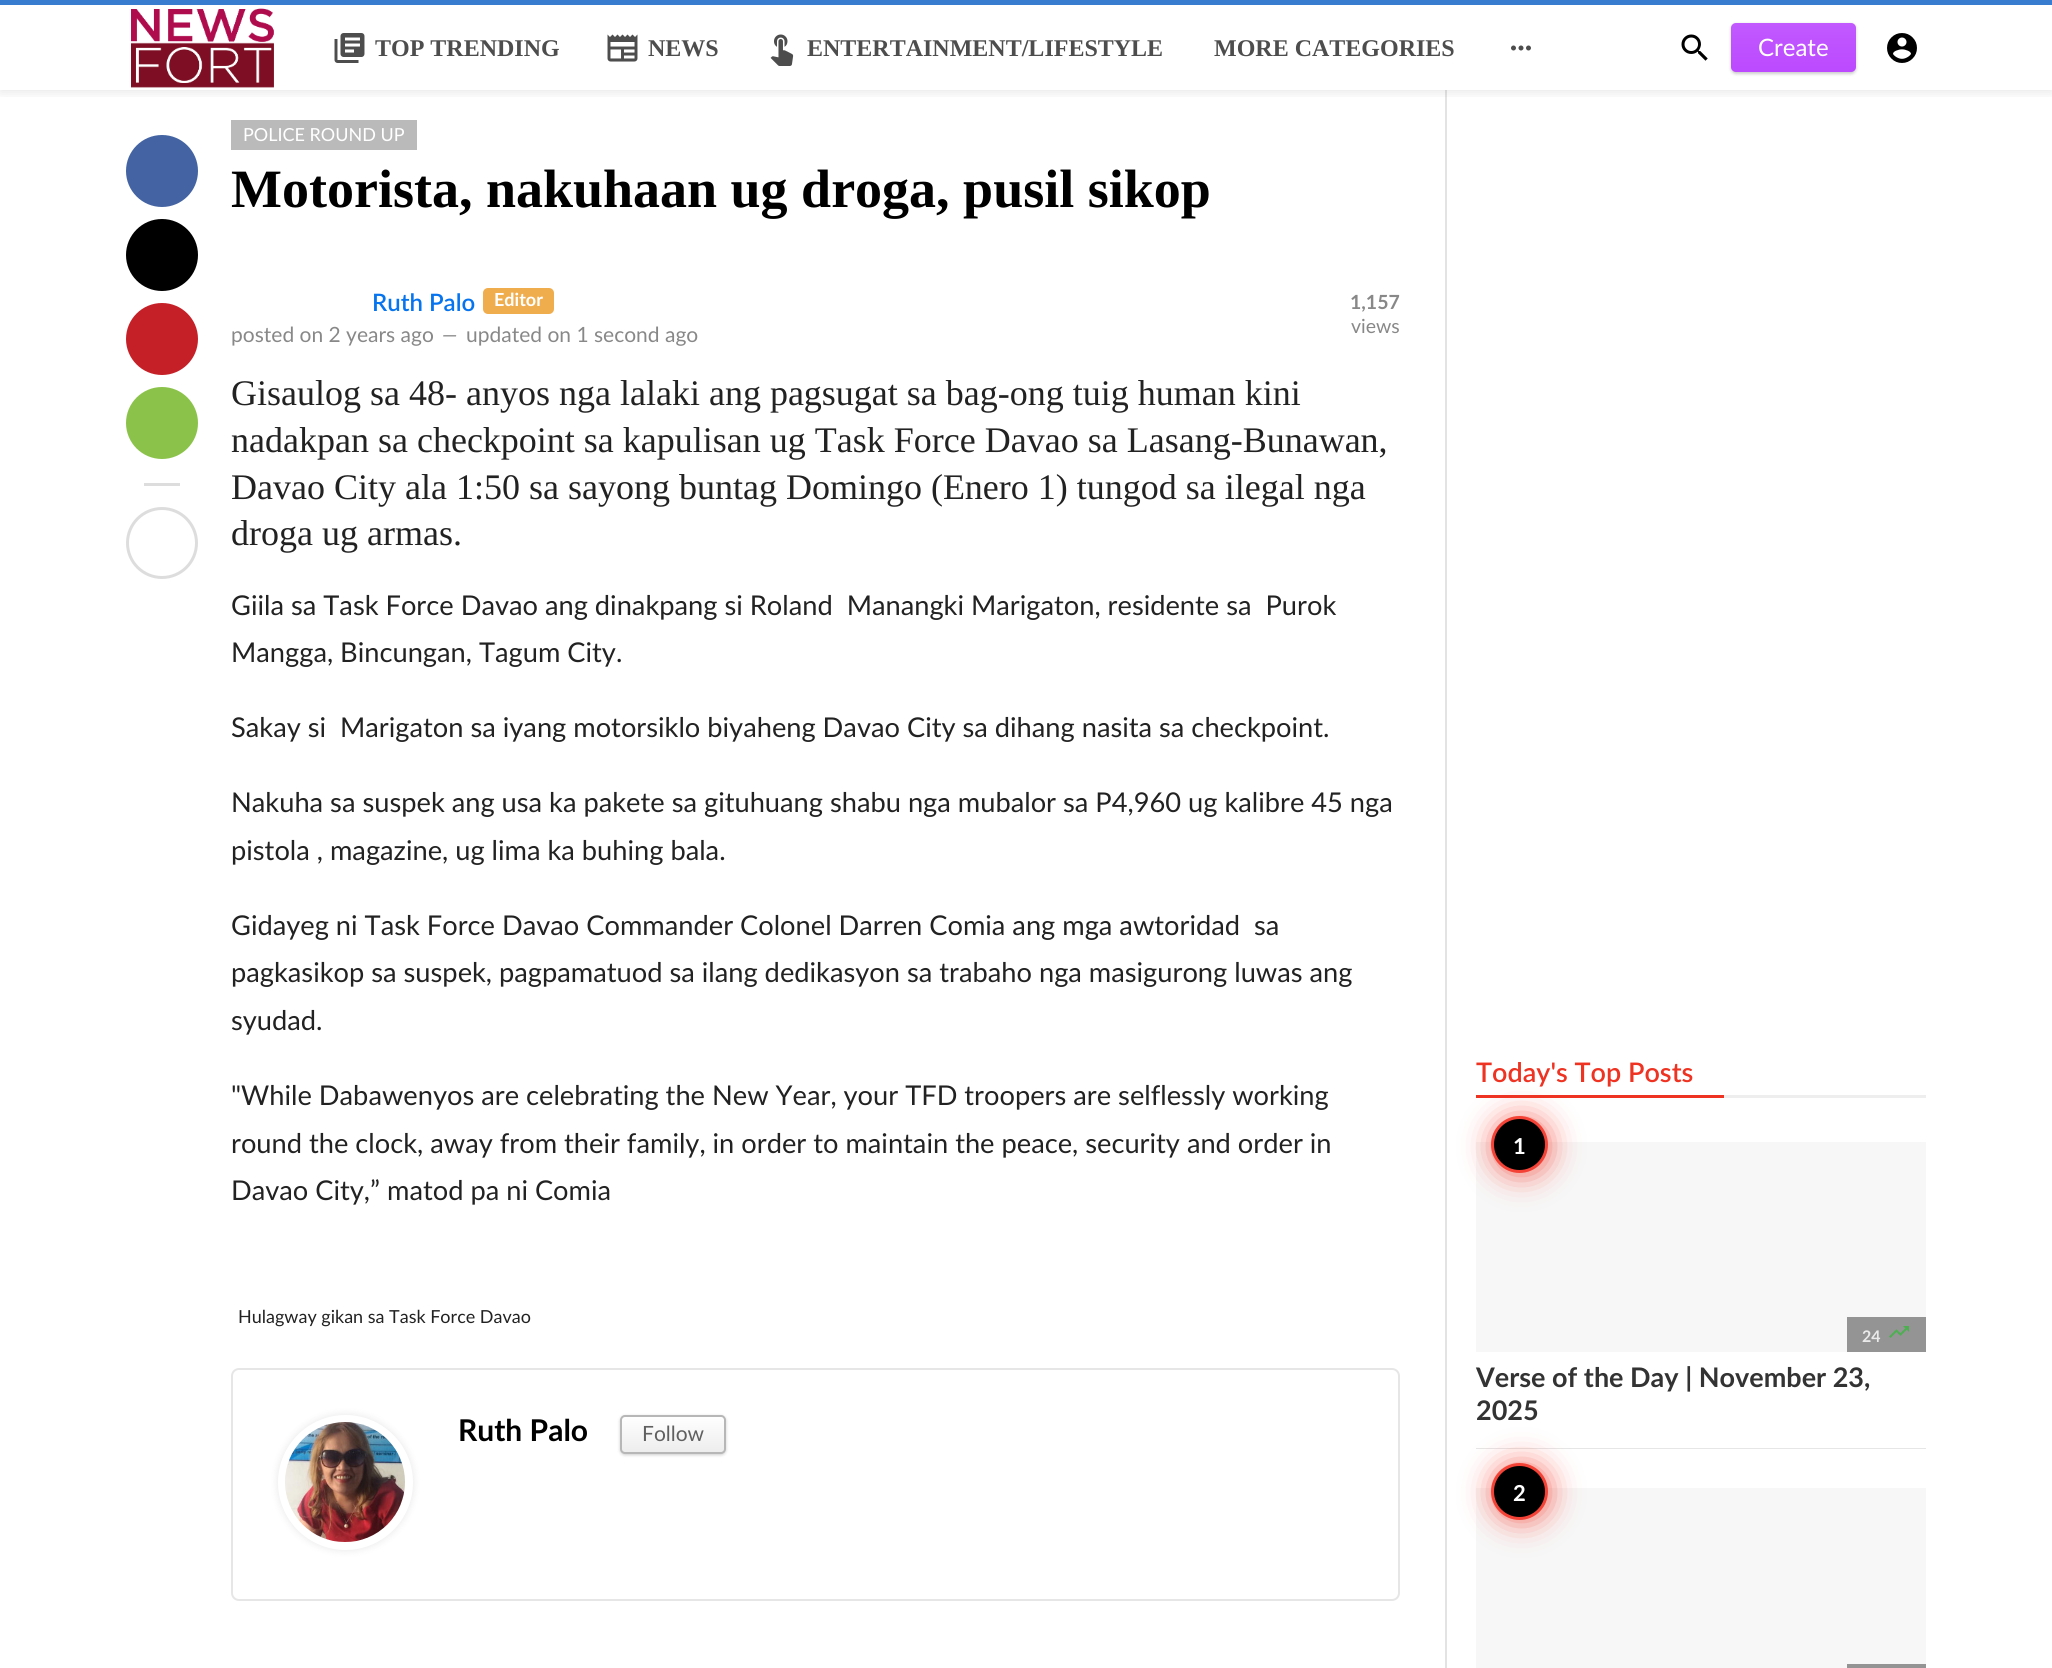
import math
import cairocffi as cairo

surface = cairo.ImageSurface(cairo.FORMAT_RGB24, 2052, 1668)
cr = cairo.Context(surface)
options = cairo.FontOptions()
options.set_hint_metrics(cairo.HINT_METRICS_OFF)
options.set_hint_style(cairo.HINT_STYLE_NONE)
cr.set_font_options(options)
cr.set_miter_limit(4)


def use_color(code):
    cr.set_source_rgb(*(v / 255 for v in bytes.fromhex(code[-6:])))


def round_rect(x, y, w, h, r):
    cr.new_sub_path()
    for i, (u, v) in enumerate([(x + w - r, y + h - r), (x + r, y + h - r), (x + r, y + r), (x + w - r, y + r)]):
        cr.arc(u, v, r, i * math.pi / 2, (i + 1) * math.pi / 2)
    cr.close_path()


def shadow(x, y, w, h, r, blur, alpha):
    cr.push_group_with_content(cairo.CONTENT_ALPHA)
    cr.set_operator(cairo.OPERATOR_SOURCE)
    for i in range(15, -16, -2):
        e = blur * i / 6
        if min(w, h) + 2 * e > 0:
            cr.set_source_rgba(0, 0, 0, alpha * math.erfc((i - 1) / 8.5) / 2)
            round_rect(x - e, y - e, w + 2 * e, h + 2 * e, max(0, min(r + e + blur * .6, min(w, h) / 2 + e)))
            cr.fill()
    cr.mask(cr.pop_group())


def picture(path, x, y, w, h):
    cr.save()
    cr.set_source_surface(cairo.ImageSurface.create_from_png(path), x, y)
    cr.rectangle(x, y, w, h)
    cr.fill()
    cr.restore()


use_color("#ffffff")
cr.paint()
use_color("#e3e3e3")
cr.rectangle(1445, 90, 2, 1578)
cr.fill()
cr.save()
cr.rectangle(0, 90, 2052, 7)
cr.clip()
use_color("#000000")
shadow(0, 2, 2052, 90, 0, 6, 0.1)
cr.restore()
use_color("#377cce")
cr.rectangle(0, 0, 2052, 5)
cr.fill()
picture("img1.png", 131, 8, 143, 80)
picture("img2.png", 334, 33, 31, 30)
cr.select_font_face("Liberation Serif", cairo.FONT_SLANT_NORMAL, cairo.FONT_WEIGHT_BOLD)
cr.set_font_size(24)
use_color("#4d4d4d")
cr.move_to(375, 56)
cr.show_text("TOP TRENDING")
picture("img3.png", 607, 34, 31, 28)
cr.move_to(648, 56)
cr.show_text("NEWS")
picture("img4.png", 770, 34, 24, 32)
cr.move_to(807, 56)
cr.show_text("ENTERTAINMENT/LIFESTYLE")
cr.move_to(1214, 56)
cr.show_text("MORE CATEGORIES")
picture("img5.png", 1511, 45, 20, 6)
picture("img6.png", 1681, 34, 27, 27)
use_color("#000000")
shadow(1731, 24, 125, 50, 5, 1.5, 0.2)
gradient = cairo.LinearGradient(1793, 22, 1793, 72)
gradient.add_color_stop_rgba(0, 0.757, 0.353, 1, 1)
gradient.add_color_stop_rgba(1, 0.737, 0.286, 1, 1)
cr.set_source(gradient)
round_rect(1731, 23, 125, 49, 5)
cr.fill()
cr.select_font_face("Lato")
use_color("#ffffff")
cr.move_to(1758, 56)
cr.show_text("Create")
picture("img7.png", 1887, 33, 30, 30)
use_color("#4363a2")
cr.arc(162, 171, 36, 0, 2 * math.pi)
cr.fill()
use_color("#000000")
cr.arc(162, 255, 36, 0, 2 * math.pi)
cr.fill()
use_color("#c52027")
cr.arc(162, 339, 36, 0, 2 * math.pi)
cr.fill()
use_color("#8bc34a")
cr.arc(162, 423, 36, 0, 2 * math.pi)
cr.fill()
use_color("#dddddd")
cr.rectangle(144, 483, 36, 3)
cr.fill()
cr.arc(162, 543, 34.5, 0, 2 * math.pi)
cr.set_line_width(3)
cr.stroke()
use_color("#bababa")
cr.rectangle(231, 120, 186, 30)
cr.fill()
cr.set_font_size(18)
use_color("#ffffff")
cr.move_to(243, 141)
cr.show_text("POLICE ROUND UP")
cr.select_font_face("Liberation Serif", cairo.FONT_SLANT_NORMAL, cairo.FONT_WEIGHT_BOLD)
cr.set_font_size(54)
use_color("#000000")
cr.move_to(231, 207)
cr.show_text("Motorista, nakuhaan ug droga, pusil sikop")
cr.select_font_face("Lato SemiBold")
cr.set_font_size(24)
use_color("#0574ee")
cr.move_to(372, 311)
cr.show_text("Ruth Palo")
use_color("#f0ad4e")
round_rect(483, 288, 71, 26, 5)
cr.fill()
cr.select_font_face("Lato", cairo.FONT_SLANT_NORMAL, cairo.FONT_WEIGHT_BOLD)
cr.set_font_size(18)
use_color("#ffffff")
cr.move_to(494, 306)
cr.show_text("Editor")
cr.select_font_face("Lato")
cr.set_font_size(21)
use_color("#888888")
cr.move_to(231, 342)
cr.show_text("posted on 2 years ago")
cr.select_font_face("Lato", cairo.FONT_SLANT_ITALIC)
cr.move_to(442, 342)
cr.show_text("—")
cr.select_font_face("Lato")
cr.move_to(466, 342)
cr.show_text("updated on 1 second ago")
cr.select_font_face("Lato", cairo.FONT_SLANT_NORMAL, cairo.FONT_WEIGHT_BOLD)
cr.set_font_size(19.5)
cr.move_to(1350, 309)
cr.show_text("1,157")
cr.select_font_face("Lato")
cr.move_to(1351, 333)
cr.show_text("views")
cr.select_font_face("Liberation Serif")
cr.set_font_size(36)
use_color("#222222")
cr.move_to(231, 405)
cr.show_text("Gisaulog sa 48- anyos nga lalaki ang pagsugat sa bag-ong tuig human kini")
cr.move_to(231, 452)
cr.show_text("nadakpan sa checkpoint sa kapulisan ug Task Force Davao sa Lasang-Bunawan,")
cr.move_to(231, 499)
cr.show_text("Davao City ala 1:50 sa sayong buntag Domingo (Enero 1) tungod sa ilegal nga")
cr.move_to(231, 545)
cr.show_text("droga ug armas.")
cr.select_font_face("Lato")
cr.set_font_size(27.25)
cr.move_to(231, 615)
cr.show_text("Giila sa Task Force Davao ang dinakpang si Roland  Manangki Marigaton, residente sa  Purok")
cr.move_to(231, 662)
cr.show_text("Mangga, Bincungan, Tagum City.")
cr.move_to(231, 737)
cr.show_text("Sakay si  Marigaton sa iyang motorsiklo biyaheng Davao City sa dihang nasita sa checkpoint.")
cr.move_to(231, 812)
cr.show_text("Nakuha sa suspek ang usa ka pakete sa gituhuang shabu nga mubalor sa P4,960 ug kalibre 45 nga")
cr.move_to(231, 860)
cr.show_text("pistola , magazine, ug lima ka buhing bala.")
cr.move_to(231, 935)
cr.show_text("Gidayeg ni Task Force Davao Commander Colonel Darren Comia ang mga awtoridad  sa")
cr.move_to(231, 982)
cr.show_text("pagkasikop sa suspek, pagpamatuod sa ilang dedikasyon sa trabaho nga masigurong luwas ang")
cr.move_to(231, 1030)
cr.show_text("syudad.")
cr.move_to(231, 1105)
cr.show_text("\"While Dabawenyos are celebrating the New Year, your TFD troopers are selflessly working")
cr.move_to(231, 1153)
cr.show_text("round the clock, away from their family, in order to maintain the peace, security and order in")
cr.move_to(231, 1200)
cr.show_text("Davao City,” matod pa ni Comia")
cr.set_font_size(18)
cr.move_to(238, 1323)
cr.show_text("Hulagway gikan sa Task Force Davao")
round_rect(232, 1369, 1167, 231, 7)
use_color("#e6e6e6")
cr.set_line_width(2)
cr.stroke()
use_color("#000000")
shadow(278, 1415, 135, 135, 67.5, 4, 0.1)
use_color("#ffffff")
cr.arc(345.5, 1482.5, 67.5, 0, 2 * math.pi)
cr.fill()
picture("img8.png", 285, 1422, 120, 120)
cr.select_font_face("Lato", cairo.FONT_SLANT_NORMAL, cairo.FONT_WEIGHT_BOLD)
cr.set_font_size(30)
use_color("#000000")
cr.move_to(458, 1441)
cr.show_text("Ruth Palo")
use_color("#000000")
shadow(620, 1416, 106, 39, 5, 1.5, 0.2)
cr.save()
round_rect(620, 1415, 106, 39, 5)
cr.clip()
gradient = cairo.LinearGradient(673, 1416, 673, 1452)
gradient.add_color_stop_rgba(0, 1, 1, 1, 1)
gradient.add_color_stop_rgba(1, 0.929, 0.929, 0.929, 1)
cr.set_source(gradient)
cr.rectangle(620, 1416, 106, 36)
cr.fill()
cr.restore()
round_rect(621, 1416, 104, 37, 4)
use_color("#b7b7b7")
cr.stroke()
cr.select_font_face("Lato")
cr.set_font_size(21)
use_color("#606060")
cr.move_to(642, 1441)
cr.show_text("Follow")
use_color("#eeeeee")
cr.rectangle(1724, 1095, 202, 3)
cr.fill()
use_color("#ee3322")
cr.rectangle(1476, 1095, 248, 3)
cr.fill()
cr.select_font_face("Lato SemiBold")
cr.set_font_size(27)
cr.move_to(1476, 1082)
cr.show_text("Today's Top Posts")
use_color("#e6e6e6")
cr.rectangle(1476, 1448, 450, 1)
cr.fill()
use_color("#f7f7f7")
cr.rectangle(1476, 1142, 450, 210)
cr.fill()
use_color("#f44336")
shadow(1493, 1118, 57, 57, 28.5, 15, 0.75)
use_color("#000000")
cr.arc(1519.5, 1144.5, 27, 0, 2 * math.pi)
cr.fill_preserve()
use_color("#f44336")
cr.set_line_width(3)
cr.stroke()
cr.select_font_face("Lato", cairo.FONT_SLANT_NORMAL, cairo.FONT_WEIGHT_BOLD)
cr.set_font_size(22)
use_color("#ffffff")
cr.move_to(1513, 1154)
cr.show_text("1")
use_color("#949494")
cr.rectangle(1847, 1317, 79, 35)
cr.fill()
cr.set_font_size(16)
use_color("#eaeaea")
cr.move_to(1862, 1342)
cr.show_text("24")
picture("img9.png", 1889, 1326, 20, 12)
cr.set_font_size(27)
use_color("#333333")
cr.move_to(1476, 1387)
cr.show_text("Verse of the Day | November 23,")
cr.move_to(1476, 1420)
cr.show_text("2025")
use_color("#f7f7f7")
cr.rectangle(1476, 1488, 450, 180)
cr.fill()
use_color("#f44336")
shadow(1493, 1464, 57, 57, 28.5, 15, 0.75)
use_color("#000000")
cr.arc(1519.5, 1491.5, 27, 0, 2 * math.pi)
cr.fill_preserve()
use_color("#f44336")
cr.stroke()
cr.set_font_size(22)
use_color("#ffffff")
cr.move_to(1513, 1501)
cr.show_text("2")
use_color("#949494")
cr.rectangle(1847, 1664, 79, 4)
cr.fill()
surface.write_to_png("result.png")
